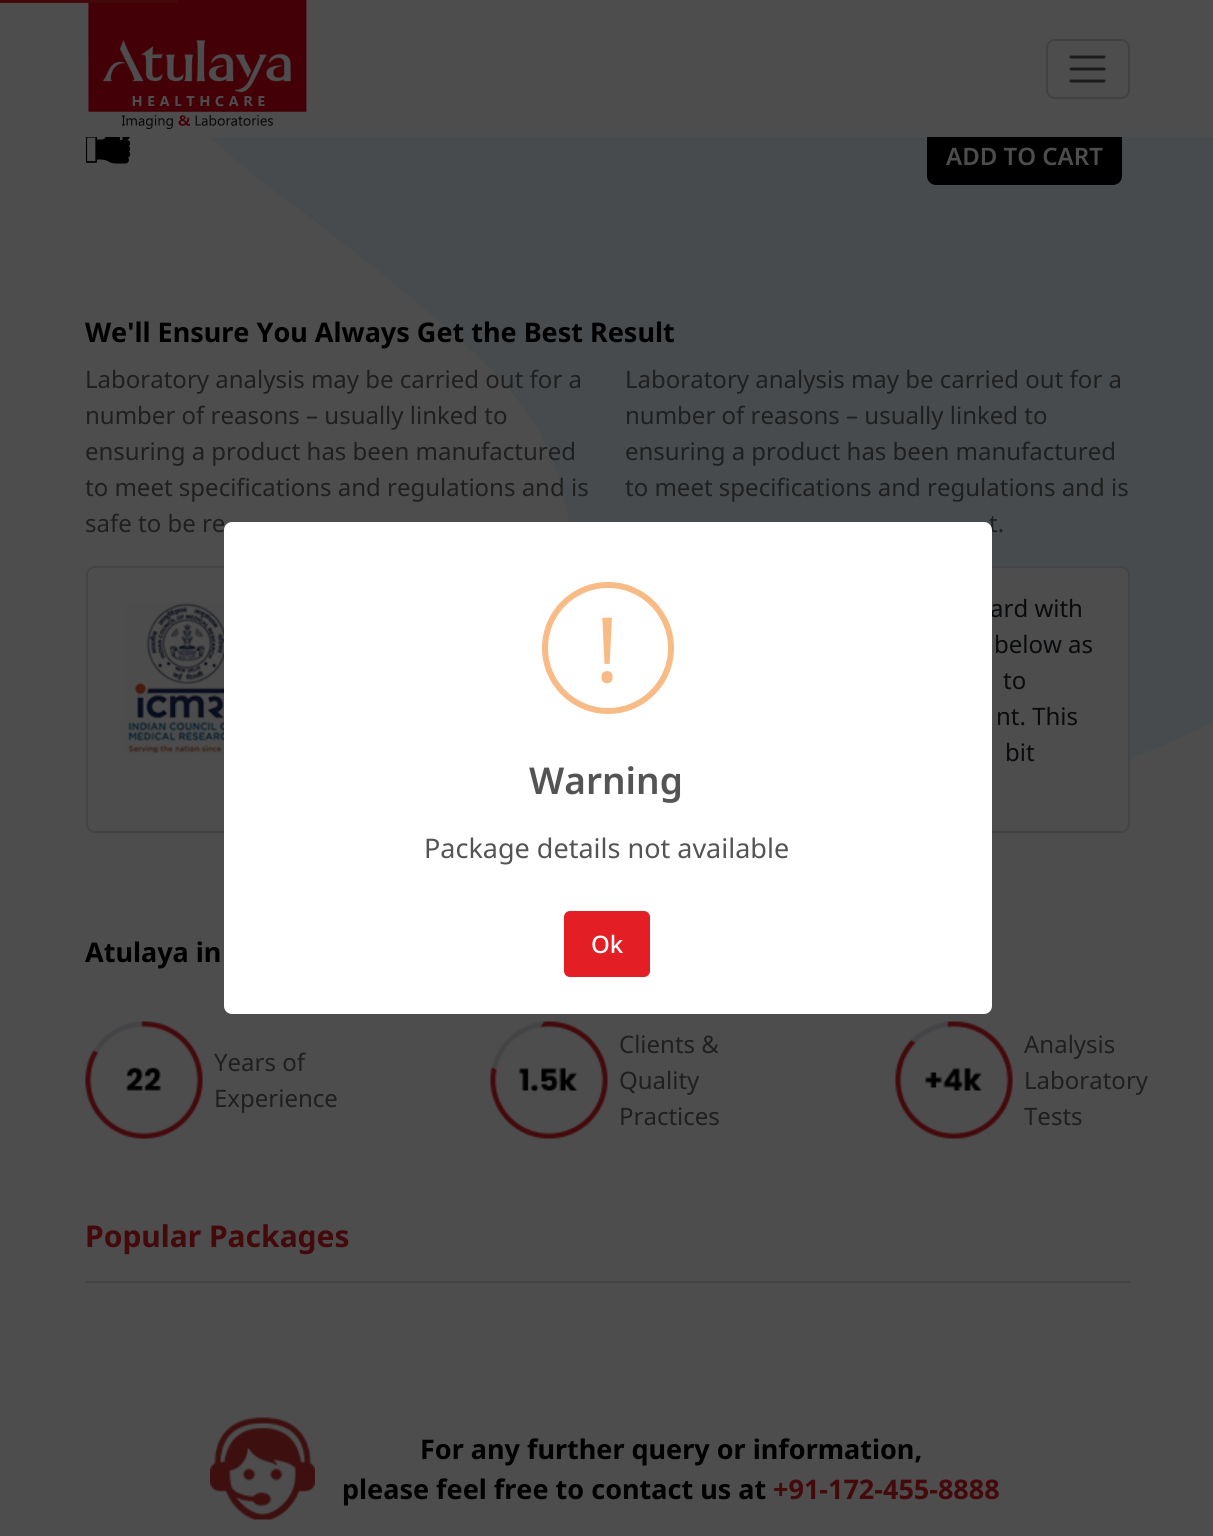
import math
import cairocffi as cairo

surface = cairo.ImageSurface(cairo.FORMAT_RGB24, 1213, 1536)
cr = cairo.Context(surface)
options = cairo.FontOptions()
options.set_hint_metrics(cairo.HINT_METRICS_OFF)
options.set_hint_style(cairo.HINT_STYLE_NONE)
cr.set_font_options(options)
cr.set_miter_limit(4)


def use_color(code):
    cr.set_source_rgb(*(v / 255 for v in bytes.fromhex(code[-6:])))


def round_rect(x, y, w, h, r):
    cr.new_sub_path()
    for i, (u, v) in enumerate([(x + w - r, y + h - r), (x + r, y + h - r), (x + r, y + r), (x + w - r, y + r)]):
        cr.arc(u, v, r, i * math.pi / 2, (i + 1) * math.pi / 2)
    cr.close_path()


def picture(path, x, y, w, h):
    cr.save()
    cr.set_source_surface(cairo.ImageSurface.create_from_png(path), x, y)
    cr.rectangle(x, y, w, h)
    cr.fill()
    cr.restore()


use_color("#4d4d4d")
cr.paint()
picture("img1.png", 209, 137, 1004, 622)
picture("img2.png", 88, 0, 219, 129)
use_color("#44090b")
cr.rectangle(0, 0, 177, 3)
cr.fill()
use_color("#000000")
round_rect(928, 129, 193, 55, 8)
cr.fill_preserve()
cr.stroke()
use_color("#4d4d4d")
cr.rectangle(927, 128, 195, 9)
cr.fill()
round_rect(1047, 40, 82, 58, 8)
use_color("#414141")
cr.stroke()
cr.new_path()
cr.move_to(1071, 57)
cr.line_to(1104, 57)
cr.move_to(1071, 69)
cr.line_to(1104, 69)
cr.move_to(1071, 81)
cr.line_to(1104, 81)
use_color("#1b1c1d")
cr.set_line_width(3)
cr.set_line_cap(cairo.LINE_CAP_ROUND)
cr.stroke()
picture("img3.png", 86, 137, 45, 27)
cr.select_font_face("Noto Sans SemiBold")
cr.set_font_size(24)
use_color("#4d4d4d")
cr.move_to(946, 165)
cr.show_text("ADD TO CART")
cr.select_font_face("Noto Sans", cairo.FONT_SLANT_NORMAL, cairo.FONT_WEIGHT_BOLD)
cr.set_font_size(27)
use_color("#000000")
cr.move_to(85, 342)
cr.show_text("We'll Ensure You Always Get the Best Result")
cr.select_font_face("Noto Sans")
cr.set_font_size(24)
use_color("#1f1f1f")
cr.move_to(85, 388)
cr.show_text("Laboratory analysis may be carried out for a")
cr.move_to(85, 424)
cr.show_text("number of reasons – usually linked to")
cr.move_to(85, 460)
cr.show_text("ensuring a product has been manufactured")
cr.move_to(85, 496)
cr.show_text("to meet specifications and regulations and is")
cr.move_to(85, 532)
cr.show_text("safe to be re")
use_color("#4d4d4d")
round_rect(87, 567, 502, 265, 8)
cr.fill_preserve()
use_color("#444447")
cr.set_line_width(2)
cr.set_line_cap(cairo.LINE_CAP_BUTT)
cr.stroke()
picture("img4.png", 121, 602, 103, 152)
use_color("#1f1f1f")
cr.move_to(625, 388)
cr.show_text("Laboratory analysis may be carried out for a")
cr.move_to(625, 424)
cr.show_text("number of reasons – usually linked to")
cr.move_to(625, 460)
cr.show_text("ensuring a product has been manufactured")
cr.move_to(625, 496)
cr.show_text("to meet specifications and regulations and is")
cr.move_to(989, 532)
cr.show_text("t.")
use_color("#4d4d4d")
round_rect(627, 567, 502, 265, 8)
cr.fill_preserve()
use_color("#444447")
cr.stroke()
use_color("#0a0b0d")
cr.move_to(990, 617)
cr.show_text("ard with")
cr.move_to(994, 653)
cr.show_text("below as")
cr.move_to(1003, 689)
cr.show_text("to")
cr.move_to(996, 725)
cr.show_text("nt. This")
cr.move_to(1005, 761)
cr.show_text("bit")
cr.select_font_face("Noto Sans", cairo.FONT_SLANT_NORMAL, cairo.FONT_WEIGHT_BOLD)
cr.set_font_size(27)
use_color("#000000")
cr.move_to(85, 962)
cr.show_text("Atulaya in")
picture("img5.png", 85, 1021, 118, 118)
cr.select_font_face("Noto Sans")
cr.set_font_size(24)
use_color("#1f1f1f")
cr.move_to(214, 1071)
cr.show_text("Years of")
cr.move_to(214, 1107)
cr.show_text("Experience")
picture("img6.png", 490, 1021, 118, 118)
cr.move_to(619, 1053)
cr.show_text("Clients &")
cr.move_to(619, 1089)
cr.show_text("Quality")
cr.move_to(619, 1125)
cr.show_text("Practices")
picture("img7.png", 895, 1021, 118, 118)
cr.move_to(1024, 1053)
cr.show_text("Analysis")
cr.move_to(1024, 1089)
cr.show_text("Laboratory")
cr.move_to(1024, 1125)
cr.show_text("Tests")
use_color("#434343")
cr.rectangle(86, 1281, 1044, 2)
cr.fill()
cr.select_font_face("Noto Sans", cairo.FONT_SLANT_NORMAL, cairo.FONT_WEIGHT_BOLD)
cr.set_font_size(30)
use_color("#44090b")
cr.move_to(85, 1247)
cr.show_text("Popular Packages")
picture("img8.png", 210, 1417, 105, 103)
cr.set_font_size(27)
use_color("#000000")
cr.move_to(420, 1459)
cr.show_text("For any further query or information,")
cr.move_to(342, 1499)
cr.show_text("please feel free to contact us at")
use_color("#44090b")
cr.move_to(773, 1499)
cr.show_text("+91-172-455-8888")
use_color("#ffffff")
round_rect(224, 522, 768, 492, 8)
cr.fill()
cr.arc(608, 648, 63, 0, 2 * math.pi)
use_color("#f8bb86")
cr.set_line_width(6)
cr.stroke()
cr.select_font_face("Noto Sans")
cr.set_font_size(90)
cr.move_to(595, 682)
cr.show_text("!")
cr.select_font_face("Noto Sans SemiBold")
cr.set_font_size(37)
use_color("#545454")
cr.move_to(529, 794)
cr.show_text("Warning")
cr.select_font_face("Noto Sans")
cr.set_font_size(27)
cr.move_to(424, 858)
cr.show_text("Package details not available")
use_color("#e31e25")
round_rect(564, 911, 86, 66, 6)
cr.fill()
cr.select_font_face("Noto Sans Medium")
cr.set_font_size(24)
use_color("#ffffff")
cr.move_to(591, 953)
cr.show_text("Ok")
surface.write_to_png("result.png")
